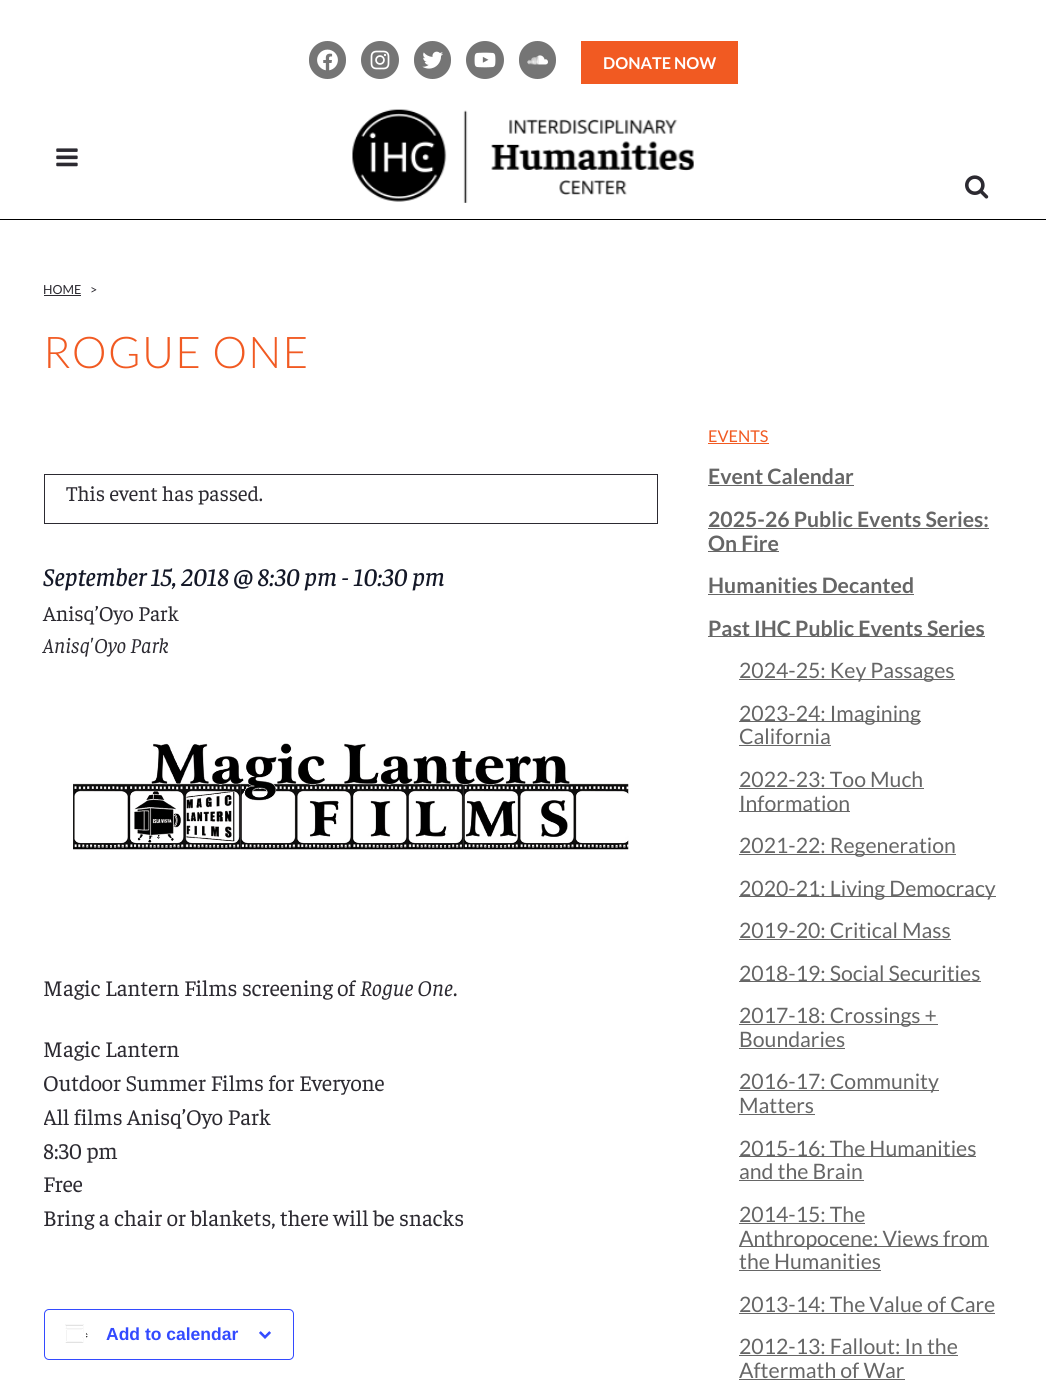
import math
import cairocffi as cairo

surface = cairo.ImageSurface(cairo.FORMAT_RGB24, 1046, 1382)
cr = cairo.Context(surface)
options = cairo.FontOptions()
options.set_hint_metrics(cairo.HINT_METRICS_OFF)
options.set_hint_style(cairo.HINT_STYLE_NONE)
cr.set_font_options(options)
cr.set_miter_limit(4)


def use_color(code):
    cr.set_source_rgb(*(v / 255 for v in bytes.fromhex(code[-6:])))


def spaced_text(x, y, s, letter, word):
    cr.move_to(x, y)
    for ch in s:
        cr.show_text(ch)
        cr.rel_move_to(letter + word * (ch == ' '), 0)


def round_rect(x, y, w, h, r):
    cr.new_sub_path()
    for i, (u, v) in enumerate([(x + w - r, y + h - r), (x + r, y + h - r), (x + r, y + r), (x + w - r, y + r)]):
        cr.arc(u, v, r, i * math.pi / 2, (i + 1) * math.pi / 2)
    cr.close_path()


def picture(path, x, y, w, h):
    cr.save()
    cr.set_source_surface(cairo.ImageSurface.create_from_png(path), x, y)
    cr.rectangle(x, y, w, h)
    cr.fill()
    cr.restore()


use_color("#ffffff")
cr.paint()
use_color("#757575")
round_rect(309, 41, 37, 38, 18.5)
cr.fill()
picture("img1.png", 317, 49, 21, 22)
cr.arc(380, 60, 19, 0, 2 * math.pi)
cr.fill()
picture("img2.png", 370, 50, 20, 20)
round_rect(414, 41, 37, 38, 18.5)
cr.fill()
picture("img3.png", 422, 51, 21, 18)
cr.arc(485, 60, 19, 0, 2 * math.pi)
cr.fill()
picture("img4.png", 474, 52, 22, 16)
round_rect(519, 41, 37, 38, 18.5)
cr.fill()
picture("img5.png", 527, 55, 21, 10)
use_color("#f15a22")
cr.rectangle(581, 41, 157, 43)
cr.fill()
cr.select_font_face("Lato", cairo.FONT_SLANT_NORMAL, cairo.FONT_WEIGHT_BOLD)
cr.set_font_size(16.25)
use_color("#ffffff")
cr.move_to(603, 69)
cr.show_text("DONATE NOW")
use_color("#000000")
cr.rectangle(0, 219, 1046, 1)
cr.fill()
picture("img6.png", 56, 148, 22, 19)
picture("img7.png", 352, 109, 342, 94)
picture("img8.png", 965, 175, 24, 24)
cr.select_font_face("Lato")
cr.set_font_size(12.5)
use_color("#2c2a31")
cr.move_to(43, 294)
cr.show_text("HOME")
cr.rectangle(44, 295, 37, 1)
cr.fill()
cr.move_to(90, 294)
cr.show_text(">")
cr.select_font_face("Lato Light")
cr.set_font_size(43.75)
use_color("#f15a22")
spaced_text(43, 368, "ROGUE ONE", 1.25, 0)
cr.rectangle(44.5, 474.5, 613, 49)
use_color("#2c2a31")
cr.set_line_width(1)
cr.stroke()
cr.select_font_face("Faustina")
cr.set_font_size(21.25)
cr.move_to(66, 501)
cr.show_text("This event has passed.")
cr.select_font_face("Faustina Medium", cairo.FONT_SLANT_ITALIC)
cr.set_font_size(25.5)
use_color("#141827")
cr.move_to(43, 586)
cr.show_text("September 15, 2018 @ 8:30 pm - 10:30 pm")
cr.select_font_face("Faustina")
cr.set_font_size(21.25)
use_color("#2c2a31")
cr.move_to(43, 621)
cr.show_text("Anisq’Oyo Park")
cr.select_font_face("Faustina", cairo.FONT_SLANT_ITALIC)
cr.move_to(43, 653)
cr.show_text("Anisq'Oyo Park")
picture("img9.png", 73, 743, 556, 107)
cr.select_font_face("Faustina")
cr.set_font_size(22.5)
cr.move_to(43, 996)
cr.show_text("Magic Lantern Films screening of")
cr.select_font_face("Faustina", cairo.FONT_SLANT_ITALIC)
cr.move_to(360, 996)
cr.show_text("Rogue One")
cr.select_font_face("Faustina")
cr.move_to(453, 996)
cr.show_text(".")
cr.move_to(43, 1057)
cr.show_text("Magic Lantern")
cr.move_to(43, 1091)
cr.show_text("Outdoor Summer Films for Everyone")
cr.save()
cr.rectangle(44, 681, 614, 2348)
cr.clip()
cr.move_to(43, 1125)
cr.show_text("All films Anisq’Oyo Park")
cr.restore()
cr.move_to(43, 1159)
cr.show_text("8:30 pm")
cr.move_to(43, 1192)
cr.show_text("Free")
cr.move_to(43, 1226)
cr.show_text("Bring a chair or blankets, there will be snacks")
round_rect(44.5, 1309.5, 249, 50, 4.5)
use_color("#334aff")
cr.stroke()
picture("img10.png", 65, 1324, 23, 19)
cr.select_font_face("Liberation Sans", cairo.FONT_SLANT_NORMAL, cairo.FONT_WEIGHT_BOLD)
cr.set_font_size(17.5)
cr.move_to(106, 1340)
cr.show_text("Add to calendar")
picture("img11.png", 259, 1331, 12, 8)
cr.select_font_face("Lato")
cr.set_font_size(16.25)
use_color("#f15a22")
cr.move_to(708, 442)
cr.show_text("EVENTS")
cr.rectangle(708, 443, 61, 1)
cr.fill()
cr.select_font_face("Lato", cairo.FONT_SLANT_NORMAL, cairo.FONT_WEIGHT_BOLD)
cr.set_font_size(21.25)
use_color("#666666")
cr.move_to(708, 484)
cr.show_text("Event Calendar")
cr.rectangle(708, 485, 146, 1)
cr.fill()
cr.move_to(708, 527)
cr.show_text("2025-26 Public Events Series:")
cr.rectangle(708, 528, 281, 1)
cr.fill()
cr.rectangle(708, 551, 71, 1)
cr.fill()
cr.move_to(708, 551)
cr.show_text("On Fire")
cr.move_to(708, 593)
cr.show_text("Humanities Decanted")
cr.rectangle(708, 594, 206, 1)
cr.fill()
cr.rectangle(708, 636, 277, 1)
cr.fill()
cr.move_to(708, 636)
cr.show_text("Past IHC Public Events Series")
cr.rectangle(739, 679, 216, 1)
cr.fill()
cr.select_font_face("Lato")
cr.move_to(739, 678)
cr.show_text("2024-25: Key Passages")
cr.rectangle(739, 721, 182, 1)
cr.fill()
cr.move_to(739, 721)
cr.show_text("2023-24: Imagining")
cr.move_to(739, 744)
cr.show_text("California")
cr.rectangle(739, 745, 92, 1)
cr.fill()
cr.move_to(739, 787)
cr.show_text("2022-23: Too Much")
cr.rectangle(739, 788, 185, 1)
cr.fill()
cr.rectangle(739, 811, 111, 1)
cr.fill()
cr.move_to(739, 811)
cr.show_text("Information")
cr.rectangle(739, 854, 217, 1)
cr.fill()
cr.move_to(739, 853)
cr.show_text("2021-22: Regeneration")
cr.rectangle(739, 896, 257, 1)
cr.fill()
cr.move_to(739, 896)
cr.show_text("2020-21: Living Democracy")
cr.move_to(739, 938)
cr.show_text("2019-20: Critical Mass")
cr.rectangle(739, 939, 212, 1)
cr.fill()
cr.rectangle(739, 981, 242, 1)
cr.fill()
cr.move_to(739, 981)
cr.show_text("2018-19: Social Securities")
cr.rectangle(739, 1024, 199, 1)
cr.fill()
cr.move_to(739, 1023)
cr.show_text("2017-18: Crossings +")
cr.move_to(739, 1047)
cr.show_text("Boundaries")
cr.rectangle(739, 1048, 106, 1)
cr.fill()
cr.rectangle(739, 1090, 200, 1)
cr.fill()
cr.move_to(739, 1089)
cr.show_text("2016-17: Community")
cr.move_to(739, 1113)
cr.show_text("Matters")
cr.rectangle(739, 1114, 76, 1)
cr.fill()
cr.rectangle(739, 1156, 237, 1)
cr.fill()
cr.move_to(739, 1156)
cr.show_text("2015-16: The Humanities")
cr.move_to(739, 1179)
cr.show_text("and the Brain")
cr.rectangle(739, 1180, 125, 1)
cr.fill()
cr.move_to(739, 1222)
cr.show_text("2014-15: The")
cr.rectangle(739, 1223, 126, 1)
cr.fill()
cr.rectangle(739, 1246, 250, 1)
cr.fill()
cr.move_to(739, 1246)
cr.show_text("Anthropocene: Views from")
cr.move_to(739, 1269)
cr.show_text("the Humanities")
cr.rectangle(739, 1270, 142, 1)
cr.fill()
cr.move_to(739, 1312)
cr.show_text("2013-14: The Value of Care")
cr.rectangle(739, 1313, 256, 1)
cr.fill()
cr.move_to(739, 1354)
cr.show_text("2012-13: Fallout: In the")
cr.rectangle(739, 1355, 219, 1)
cr.fill()
cr.move_to(739, 1378)
cr.show_text("Aftermath of War")
cr.rectangle(739, 1379, 166, 1)
cr.fill()
surface.write_to_png("result.png")
